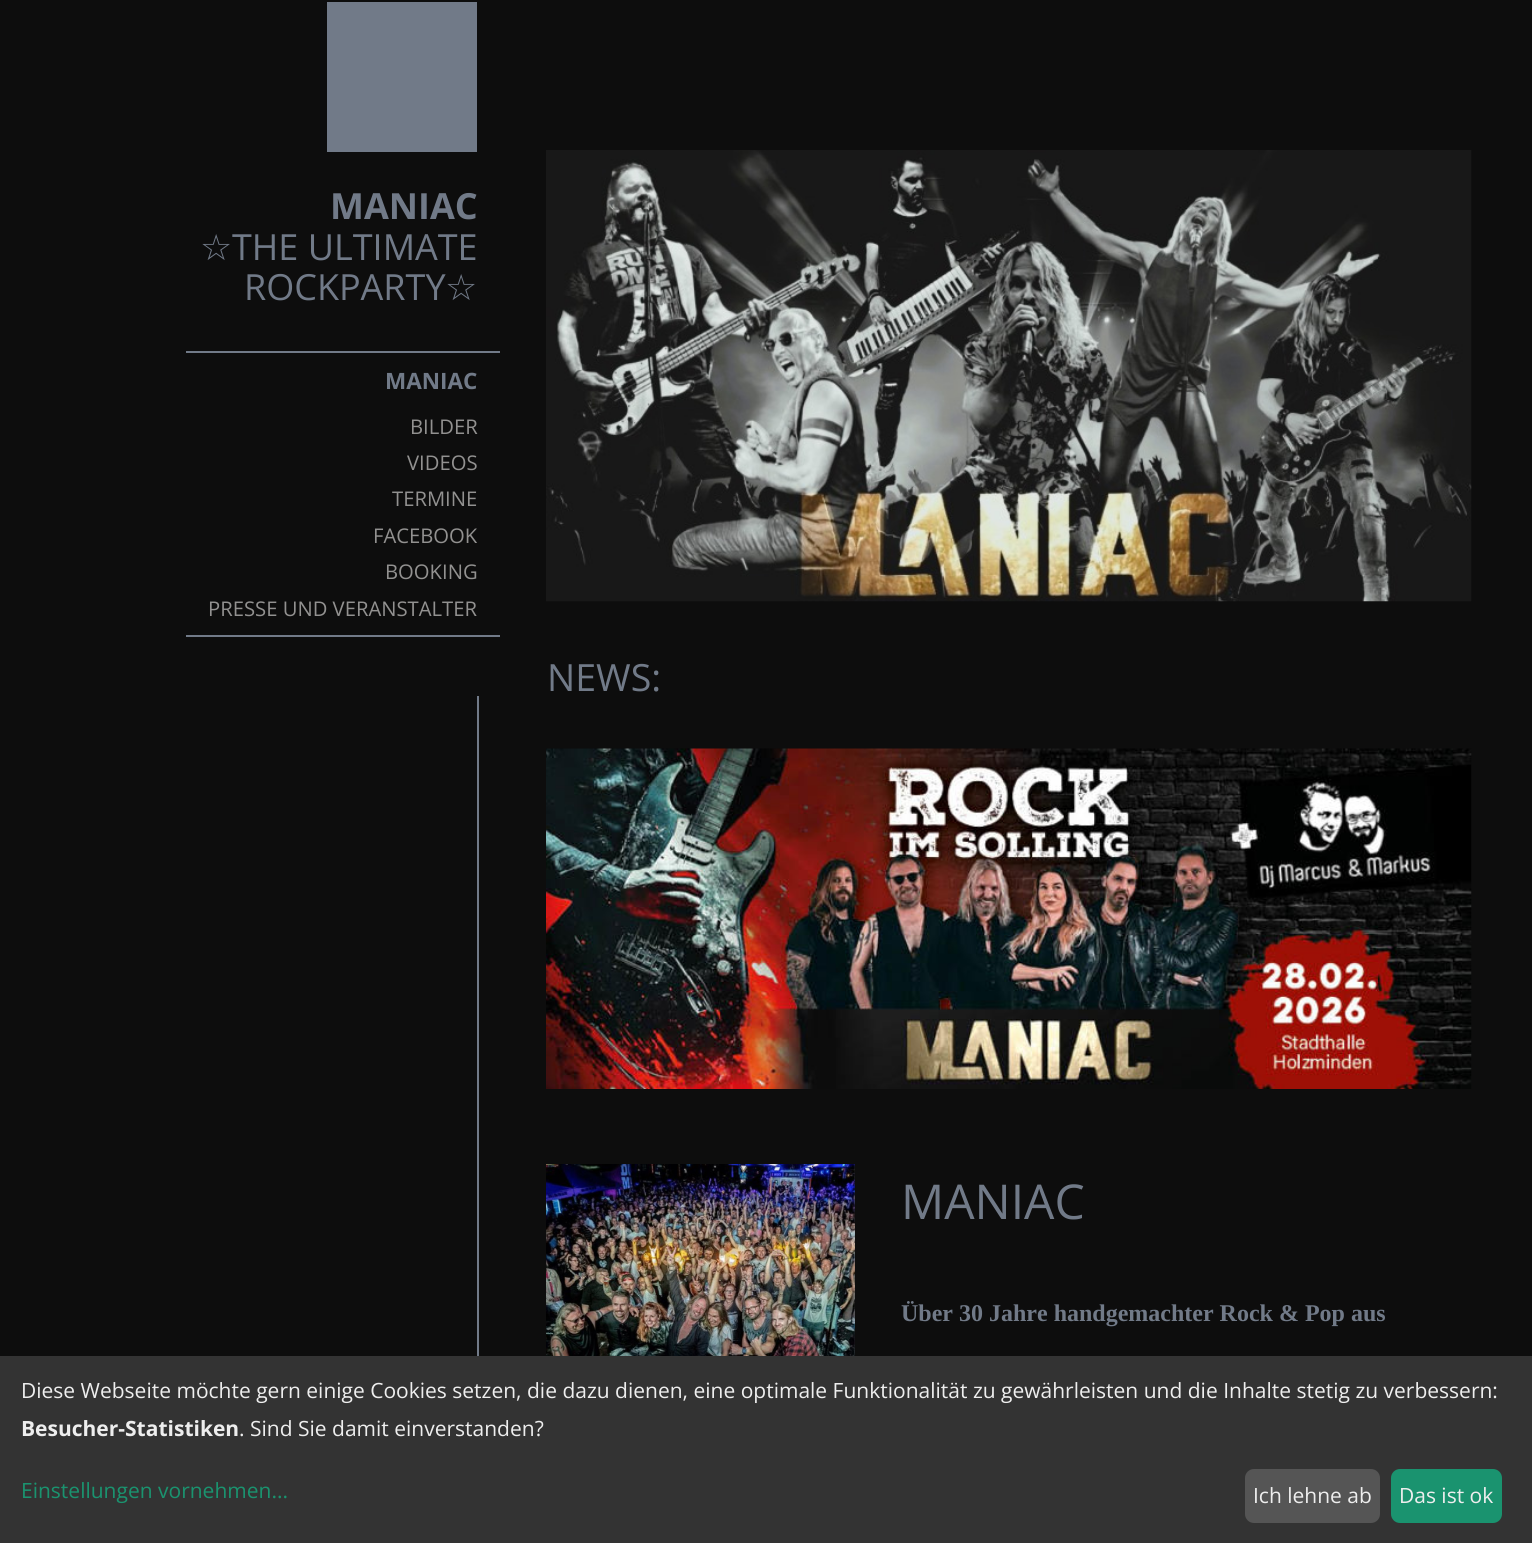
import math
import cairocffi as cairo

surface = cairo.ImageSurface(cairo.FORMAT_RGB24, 1532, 1543)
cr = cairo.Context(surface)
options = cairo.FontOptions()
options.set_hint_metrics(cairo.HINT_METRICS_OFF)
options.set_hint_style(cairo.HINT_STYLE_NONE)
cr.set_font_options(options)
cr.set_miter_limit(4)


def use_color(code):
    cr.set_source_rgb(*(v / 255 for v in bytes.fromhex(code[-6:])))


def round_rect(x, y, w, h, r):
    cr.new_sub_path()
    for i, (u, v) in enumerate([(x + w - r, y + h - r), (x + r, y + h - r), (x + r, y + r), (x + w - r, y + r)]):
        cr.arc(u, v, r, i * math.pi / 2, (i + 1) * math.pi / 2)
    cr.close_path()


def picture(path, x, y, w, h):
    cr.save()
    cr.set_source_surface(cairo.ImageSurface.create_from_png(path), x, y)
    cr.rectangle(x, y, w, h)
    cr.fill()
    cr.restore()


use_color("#0d0d0d")
cr.paint()
use_color("#717a88")
cr.rectangle(327, 2, 150, 150)
cr.fill()
cr.select_font_face("Open Sans", cairo.FONT_SLANT_NORMAL, cairo.FONT_WEIGHT_BOLD)
cr.set_font_size(36)
cr.move_to(330, 219)
cr.show_text("MANIAC")
cr.select_font_face("DejaVu Sans")
cr.move_to(200, 260)
cr.show_text("☆")
cr.select_font_face("Open Sans")
cr.move_to(232, 260)
cr.show_text("THE ULTIMATE")
cr.move_to(244, 300)
cr.show_text("ROCKPARTY")
cr.select_font_face("DejaVu Sans")
cr.move_to(445, 300)
cr.show_text("☆")
cr.rectangle(186, 351, 314, 2)
cr.fill()
cr.rectangle(186, 635, 314, 2)
cr.fill()
cr.select_font_face("Open Sans", cairo.FONT_SLANT_NORMAL, cairo.FONT_WEIGHT_BOLD)
cr.set_font_size(22.5)
cr.move_to(385, 389)
cr.show_text("MANIAC")
cr.select_font_face("Open Sans")
cr.set_font_size(20.25)
use_color("#929190")
cr.move_to(410, 434)
cr.show_text("BILDER")
cr.move_to(407, 470)
cr.show_text("VIDEOS")
cr.move_to(392, 506)
cr.show_text("TERMINE")
cr.move_to(373, 543)
cr.show_text("FACEBOOK")
cr.move_to(385, 579)
cr.show_text("BOOKING")
cr.move_to(208, 616)
cr.show_text("PRESSE UND VERANSTALTER")
picture("img1.png", 546, 150, 926, 452)
cr.set_font_size(37.5)
use_color("#717a88")
cr.move_to(547, 691)
cr.show_text("NEWS:")
picture("img2.png", 546, 748, 926, 341)
picture("img3.png", 546, 1164, 309, 192)
cr.set_font_size(48)
cr.move_to(901, 1219)
cr.show_text("MANIAC")
cr.select_font_face("Liberation Serif", cairo.FONT_SLANT_NORMAL, cairo.FONT_WEIGHT_BOLD)
cr.set_font_size(24)
cr.move_to(901, 1321)
cr.show_text("Über 30 Jahre handgemachter Rock & Pop aus")
cr.rectangle(477, 696, 2, 660)
cr.fill()
use_color("#333333")
cr.rectangle(0, 1356, 1532, 187)
cr.fill()
cr.select_font_face("Open Sans")
cr.set_font_size(21)
use_color("#eeeeee")
cr.move_to(21, 1398)
cr.show_text("Diese Webseite möchte gern einige Cookies setzen, die dazu dienen, eine optimale Funktionalität zu gewährleisten und die Inhalte stetig zu verbessern:")
cr.select_font_face("Open Sans", cairo.FONT_SLANT_NORMAL, cairo.FONT_WEIGHT_BOLD)
cr.move_to(21, 1436)
cr.show_text("Besucher-Statistiken")
cr.select_font_face("Open Sans")
cr.move_to(239, 1436)
cr.show_text(". Sind Sie damit einverstanden?")
use_color("#1a936f")
cr.move_to(21, 1498)
cr.show_text("Einstellungen vornehmen...")
use_color("#555555")
round_rect(1245, 1469, 135, 54, 9)
cr.fill()
use_color("#eeeeee")
cr.move_to(1253, 1503)
cr.show_text("Ich lehne ab")
use_color("#1a936f")
round_rect(1391, 1469, 111, 54, 9)
cr.fill()
use_color("#eeeeee")
cr.move_to(1399, 1503)
cr.show_text("Das ist ok")
surface.write_to_png("result.png")
